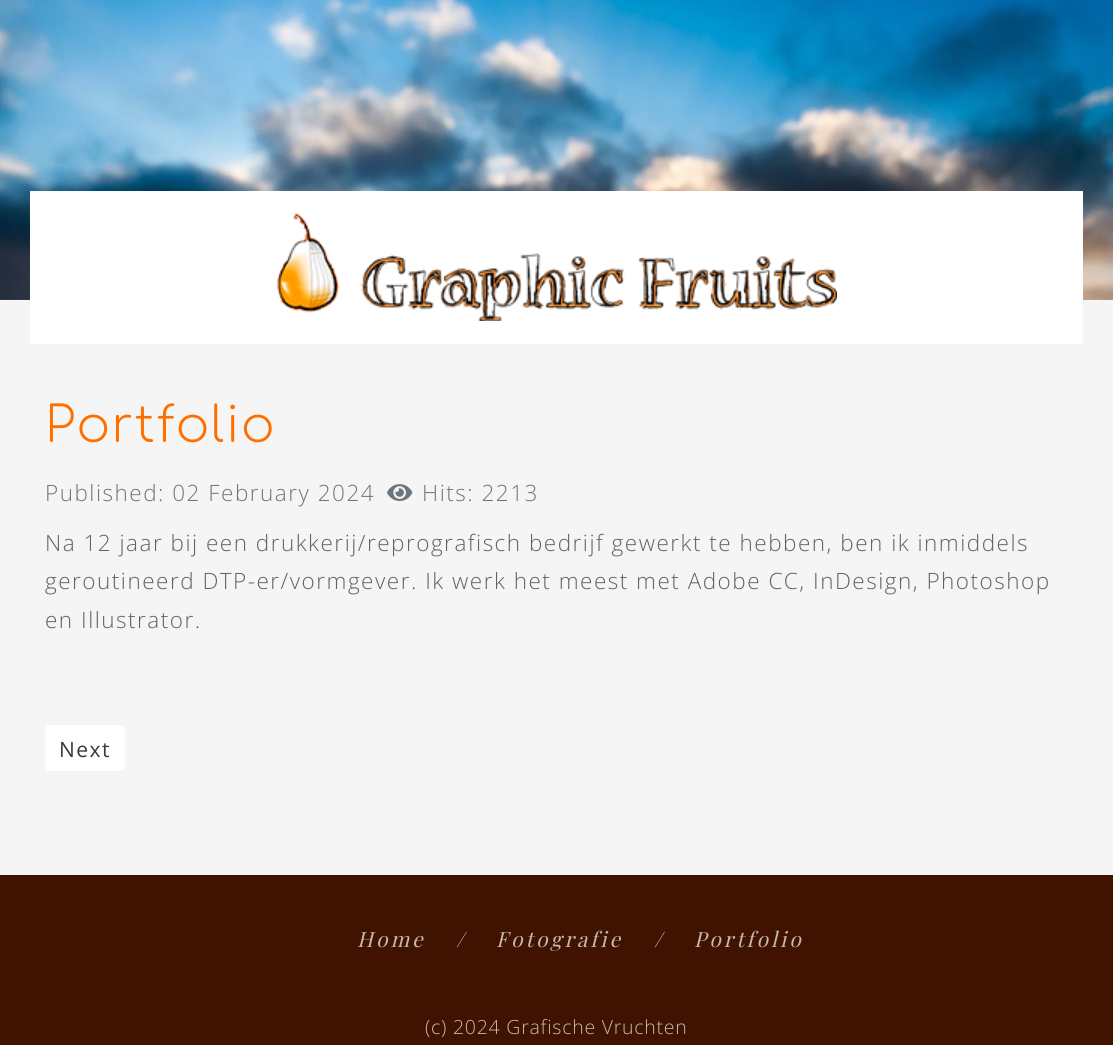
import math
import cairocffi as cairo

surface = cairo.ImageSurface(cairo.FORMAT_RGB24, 1113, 1045)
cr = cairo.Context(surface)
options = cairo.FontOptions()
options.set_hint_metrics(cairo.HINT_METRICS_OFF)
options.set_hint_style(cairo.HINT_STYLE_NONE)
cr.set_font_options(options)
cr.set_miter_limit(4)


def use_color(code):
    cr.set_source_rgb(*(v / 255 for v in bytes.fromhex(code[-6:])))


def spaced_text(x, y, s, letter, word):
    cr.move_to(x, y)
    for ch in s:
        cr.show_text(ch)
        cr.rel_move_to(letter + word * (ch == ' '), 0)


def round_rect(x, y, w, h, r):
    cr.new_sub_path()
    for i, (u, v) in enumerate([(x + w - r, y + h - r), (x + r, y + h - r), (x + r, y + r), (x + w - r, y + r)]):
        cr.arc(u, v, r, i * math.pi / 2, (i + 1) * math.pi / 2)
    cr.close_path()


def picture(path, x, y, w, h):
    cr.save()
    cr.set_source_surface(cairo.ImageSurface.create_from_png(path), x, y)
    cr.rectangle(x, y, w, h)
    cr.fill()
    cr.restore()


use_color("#f5f5f5")
cr.paint()
picture("img1.png", 0, 0, 1113, 300)
use_color("#ffffff")
cr.rectangle(30, 191, 1053, 153)
cr.fill()
picture("img2.png", 277, 213, 560, 108)
cr.select_font_face("Comfortaa Light")
cr.set_font_size(49.5)
use_color("#ff6f00")
spaced_text(45, 442, "Portfolio", 1.5, 0)
cr.select_font_face("Open Sans Light")
cr.set_font_size(22.5)
use_color("#6d757e")
spaced_text(45, 501, "Published: 02 February 2024", 1.5, 0)
picture("img3.png", 387, 484, 26, 17)
spaced_text(422, 501, "Hits: 2213", 1.5, 0)
use_color("#636363")
spaced_text(45, 551, "Na 12 jaar bij een drukkerij/reprografisch bedrijf gewerkt te hebben, ben ik inmiddels", 1.5, 0)
spaced_text(45, 589, "geroutineerd DTP-er/vormgever. Ik werk het meest met Adobe CC, InDesign, Photoshop", 1.5, 0)
spaced_text(45, 628, "en Illustrator.", 1.5, 0)
use_color("#ffffff")
round_rect(45, 725, 80, 46, 5)
cr.fill()
cr.select_font_face("Open Sans")
cr.set_font_size(21)
use_color("#353b41")
spaced_text(59, 757, "Next", 1.5, 0)
use_color("#401300")
cr.rectangle(0, 875, 1113, 170)
cr.fill()
cr.select_font_face("Playfair Display", cairo.FONT_SLANT_ITALIC)
use_color("#c6b8b3")
spaced_text(357, 947, "Home", 3, 0)
spaced_text(456, 947, "/", 3, 0)
spaced_text(496, 947, "Fotografie", 3, 0)
spaced_text(654, 947, "/", 3, 0)
spaced_text(694, 947, "Portfolio", 3, 0)
cr.select_font_face("Open Sans Light")
cr.set_font_size(19.5)
spaced_text(425, 1034, "(c) 2024 Grafische Vruchten", 0.75, 0)
surface.write_to_png("result.png")
